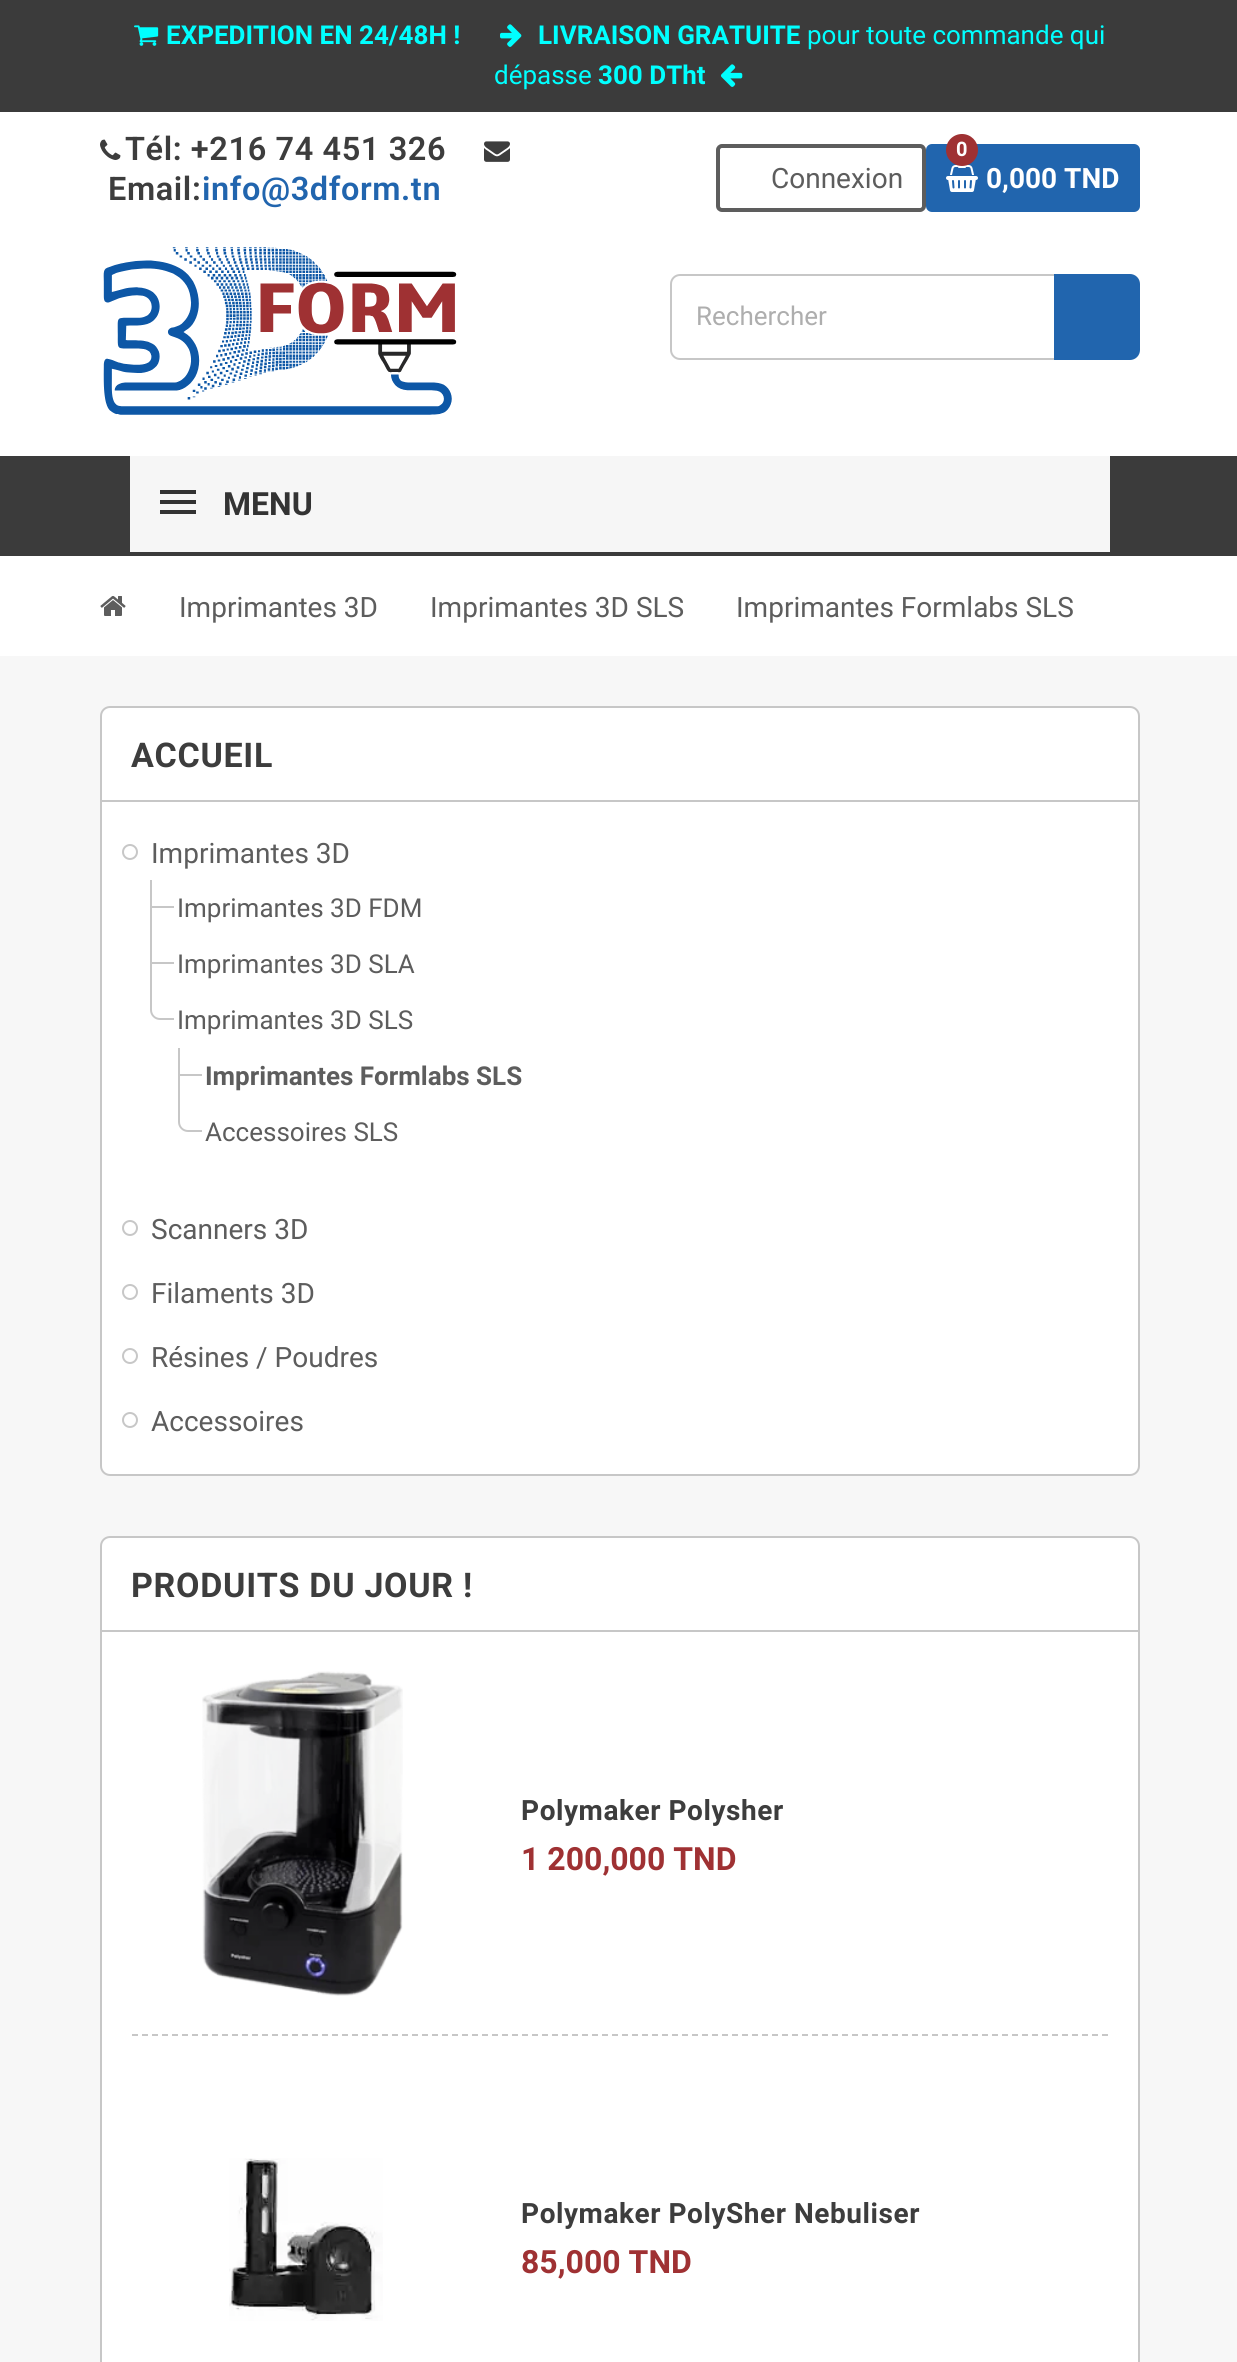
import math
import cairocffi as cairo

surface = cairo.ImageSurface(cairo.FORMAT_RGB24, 1237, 2362)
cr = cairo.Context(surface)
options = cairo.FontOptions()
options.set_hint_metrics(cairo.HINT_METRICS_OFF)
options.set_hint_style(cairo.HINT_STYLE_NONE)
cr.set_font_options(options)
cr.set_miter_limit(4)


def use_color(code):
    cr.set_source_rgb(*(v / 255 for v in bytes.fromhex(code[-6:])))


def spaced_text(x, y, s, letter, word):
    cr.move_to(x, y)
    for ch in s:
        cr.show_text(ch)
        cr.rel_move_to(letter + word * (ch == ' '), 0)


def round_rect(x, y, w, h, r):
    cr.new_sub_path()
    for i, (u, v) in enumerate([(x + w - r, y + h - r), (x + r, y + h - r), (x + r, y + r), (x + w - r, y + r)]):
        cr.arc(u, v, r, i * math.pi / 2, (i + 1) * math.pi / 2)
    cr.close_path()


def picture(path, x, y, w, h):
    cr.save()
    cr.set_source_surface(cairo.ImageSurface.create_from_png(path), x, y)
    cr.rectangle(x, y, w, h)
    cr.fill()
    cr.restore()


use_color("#ffffff")
cr.paint()
use_color("#3b3b3b")
cr.rectangle(0, 0, 1237, 112)
cr.fill()
picture("img1.png", 134, 25, 25, 21)
cr.select_font_face("Roboto", cairo.FONT_SLANT_NORMAL, cairo.FONT_WEIGHT_BOLD)
cr.set_font_size(26)
use_color("#00ffff")
cr.move_to(166, 44)
cr.show_text("EXPEDITION EN 24/48H !")
picture("img2.png", 500, 24, 22, 23)
cr.move_to(538, 44)
cr.show_text("LIVRAISON GRATUITE")
cr.select_font_face("Roboto")
cr.move_to(807, 44)
cr.show_text("pour toute commande qui")
cr.move_to(494, 84)
cr.show_text("dépasse")
cr.select_font_face("Roboto", cairo.FONT_SLANT_NORMAL, cairo.FONT_WEIGHT_BOLD)
cr.move_to(598, 84)
cr.show_text("300 DTht")
picture("img3.png", 720, 64, 23, 23)
cr.select_font_face("Roboto SemiBold")
cr.set_font_size(32.5)
use_color("#3d3d3d")
spaced_text(125, 160, "Tél: +216 74 451 326", 0.6, 0)
picture("img4.png", 484, 141, 26, 21)
spaced_text(108, 200, "Email:", 0.6, 0)
use_color("#2165ae")
spaced_text(202, 200, "info@3dform.tn", 0.6, 0)
picture("img5.png", 100, 139, 21, 21)
round_rect(718, 146, 206, 64, 4)
use_color("#5d5d5d")
cr.set_line_width(4)
cr.stroke()
cr.select_font_face("Roboto")
cr.set_font_size(28)
cr.move_to(771, 188)
cr.show_text("Connexion")
use_color("#2165ae")
round_rect(926, 144, 214, 68, 6)
cr.fill()
picture("img6.png", 946, 165, 32, 27)
use_color("#9f3133")
cr.arc(962, 150, 16, 0, 2 * math.pi)
cr.fill()
cr.select_font_face("Roboto", cairo.FONT_SLANT_NORMAL, cairo.FONT_WEIGHT_BOLD)
cr.set_font_size(20)
use_color("#ffffff")
cr.move_to(956, 156)
cr.show_text("0")
cr.set_font_size(28)
cr.move_to(986, 188)
cr.show_text("0,000 TND")
picture("img7.png", 103, 247, 354, 168)
round_rect(671, 275, 466, 84, 9)
use_color("#c7c7c7")
cr.set_line_width(2)
cr.stroke()
cr.select_font_face("Roboto")
cr.set_font_size(26)
use_color("#aeaeae")
cr.move_to(696, 325)
cr.show_text("Rechercher")
use_color("#2165ae")
cr.new_path()
cr.move_to(1054, 274)
cr.line_to(1130, 274)
cr.curve_to(1135.5, 274, 1140, 278.5, 1140, 284)
cr.line_to(1140, 350)
cr.curve_to(1140, 355.5, 1135.5, 360, 1130, 360)
cr.line_to(1054, 360)
cr.close_path()
cr.fill()
use_color("#3b3b3b")
cr.rectangle(0, 456, 1237, 100)
cr.fill()
use_color("#f6f6f6")
cr.rectangle(130, 456, 980, 96)
cr.fill()
use_color("#333333")
cr.rectangle(160, 490, 36, 4)
cr.fill()
cr.rectangle(160, 500, 36, 4)
cr.fill()
cr.rectangle(160, 510, 36, 4)
cr.fill()
cr.select_font_face("Roboto", cairo.FONT_SLANT_NORMAL, cairo.FONT_WEIGHT_BOLD)
cr.set_font_size(32)
cr.move_to(223, 515)
cr.show_text("MENU")
use_color("#f7f7f7")
cr.rectangle(0, 656, 1237, 1706)
cr.fill()
picture("img8.png", 100, 596, 26, 20)
cr.select_font_face("Roboto")
cr.set_font_size(28)
use_color("#5d5d5d")
cr.move_to(179, 617)
cr.show_text("Imprimantes 3D")
cr.move_to(430, 617)
cr.show_text("Imprimantes 3D SLS")
cr.move_to(736, 617)
cr.show_text("Imprimantes Formlabs SLS")
use_color("#ffffff")
round_rect(101, 707, 1038, 768, 9)
cr.fill_preserve()
use_color("#c7c7c7")
cr.stroke()
cr.rectangle(102, 800, 1036, 2)
cr.fill()
cr.select_font_face("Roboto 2", cairo.FONT_SLANT_NORMAL, cairo.FONT_WEIGHT_BOLD)
cr.set_font_size(34)
use_color("#3d3d3d")
spaced_text(131, 767, "ACCUEIL", 0.7, 0)
cr.new_path()
cr.arc(130, 852, 7, 0, 2 * math.pi)
use_color("#c7c7c7")
cr.stroke()
cr.select_font_face("Roboto")
cr.set_font_size(28)
use_color("#5d5d5d")
cr.move_to(151, 863)
cr.show_text("Imprimantes 3D")
use_color("#c7c7c7")
cr.rectangle(150, 906, 24, 2)
cr.fill()
cr.rectangle(150, 880, 2, 56)
cr.fill()
cr.set_font_size(26)
use_color("#5d5d5d")
cr.move_to(177, 917)
cr.show_text("Imprimantes 3D FDM")
use_color("#c7c7c7")
cr.rectangle(150, 962, 24, 2)
cr.fill()
cr.rectangle(150, 936, 2, 56)
cr.fill()
use_color("#5d5d5d")
cr.move_to(177, 973)
cr.show_text("Imprimantes 3D SLA")
use_color("#c7c7c7")
cr.set_fill_rule(cairo.FILL_RULE_EVEN_ODD)
cr.new_path()
cr.move_to(150, 992)
cr.line_to(174, 992)
cr.line_to(174, 1020)
cr.line_to(160, 1020)
cr.curve_to(154.5, 1020, 150, 1015.5, 150, 1010)
cr.close_path()
cr.move_to(152, 992)
cr.line_to(174, 992)
cr.line_to(174, 1018)
cr.line_to(160, 1018)
cr.curve_to(155.5, 1018, 152, 1014.5, 152, 1010)
cr.close_path()
cr.fill()
use_color("#5d5d5d")
cr.move_to(177, 1029)
cr.show_text("Imprimantes 3D SLS")
use_color("#c7c7c7")
cr.rectangle(178, 1074, 24, 2)
cr.fill()
cr.rectangle(178, 1048, 2, 56)
cr.fill()
cr.select_font_face("Roboto", cairo.FONT_SLANT_NORMAL, cairo.FONT_WEIGHT_BOLD)
use_color("#5d5d5d")
cr.move_to(205, 1085)
cr.show_text("Imprimantes Formlabs SLS")
use_color("#c7c7c7")
cr.new_path()
cr.move_to(178, 1104)
cr.line_to(202, 1104)
cr.line_to(202, 1132)
cr.line_to(188, 1132)
cr.curve_to(182.5, 1132, 178, 1127.5, 178, 1122)
cr.close_path()
cr.move_to(180, 1104)
cr.line_to(202, 1104)
cr.line_to(202, 1130)
cr.line_to(188, 1130)
cr.curve_to(183.5, 1130, 180, 1126.5, 180, 1122)
cr.close_path()
cr.fill()
cr.select_font_face("Roboto")
use_color("#5d5d5d")
cr.move_to(205, 1141)
cr.show_text("Accessoires SLS")
cr.new_path()
cr.arc(130, 1228, 7, 0, 2 * math.pi)
use_color("#c7c7c7")
cr.stroke()
cr.set_font_size(28)
use_color("#5d5d5d")
cr.move_to(151, 1239)
cr.show_text("Scanners 3D")
cr.new_path()
cr.arc(130, 1292, 7, 0, 2 * math.pi)
use_color("#c7c7c7")
cr.stroke()
use_color("#5d5d5d")
cr.move_to(151, 1303)
cr.show_text("Filaments 3D")
cr.new_path()
cr.arc(130, 1356, 7, 0, 2 * math.pi)
use_color("#c7c7c7")
cr.stroke()
use_color("#5d5d5d")
cr.move_to(151, 1367)
cr.show_text("Résines / Poudres")
cr.new_path()
cr.arc(130, 1420, 7, 0, 2 * math.pi)
use_color("#c7c7c7")
cr.stroke()
use_color("#5d5d5d")
cr.move_to(151, 1431)
cr.show_text("Accessoires")
use_color("#ffffff")
round_rect(101, 1537, 1038, 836, 9)
cr.fill_preserve()
use_color("#c7c7c7")
cr.stroke()
cr.rectangle(102, 1630, 1036, 2)
cr.fill()
cr.select_font_face("Roboto 2", cairo.FONT_SLANT_NORMAL, cairo.FONT_WEIGHT_BOLD)
cr.set_font_size(34)
use_color("#3d3d3d")
spaced_text(131, 1597, "PRODUITS DU JOUR !", 0.7, 0)
picture("img9.png", 202, 1671, 201, 325)
cr.select_font_face("Roboto", cairo.FONT_SLANT_NORMAL, cairo.FONT_WEIGHT_BOLD)
cr.set_font_size(28)
spaced_text(521, 1820, "Polymaker Polysher", 0.55, 0)
cr.set_font_size(32)
use_color("#9f3133")
cr.move_to(521, 1870)
cr.show_text("1 200,000 TND")
cr.new_path()
cr.move_to(132, 2035)
cr.line_to(1108, 2035)
use_color("#c7c7c7")
cr.set_dash([6, 4])
cr.stroke()
picture("img10.png", 229, 2158, 154, 163)
cr.set_font_size(28)
use_color("#3d3d3d")
spaced_text(521, 2223, "Polymaker PolySher Nebuliser", 0.55, 0)
cr.set_font_size(32)
use_color("#9f3133")
cr.move_to(521, 2273)
cr.show_text("85,000 TND")
surface.write_to_png("result.png")
